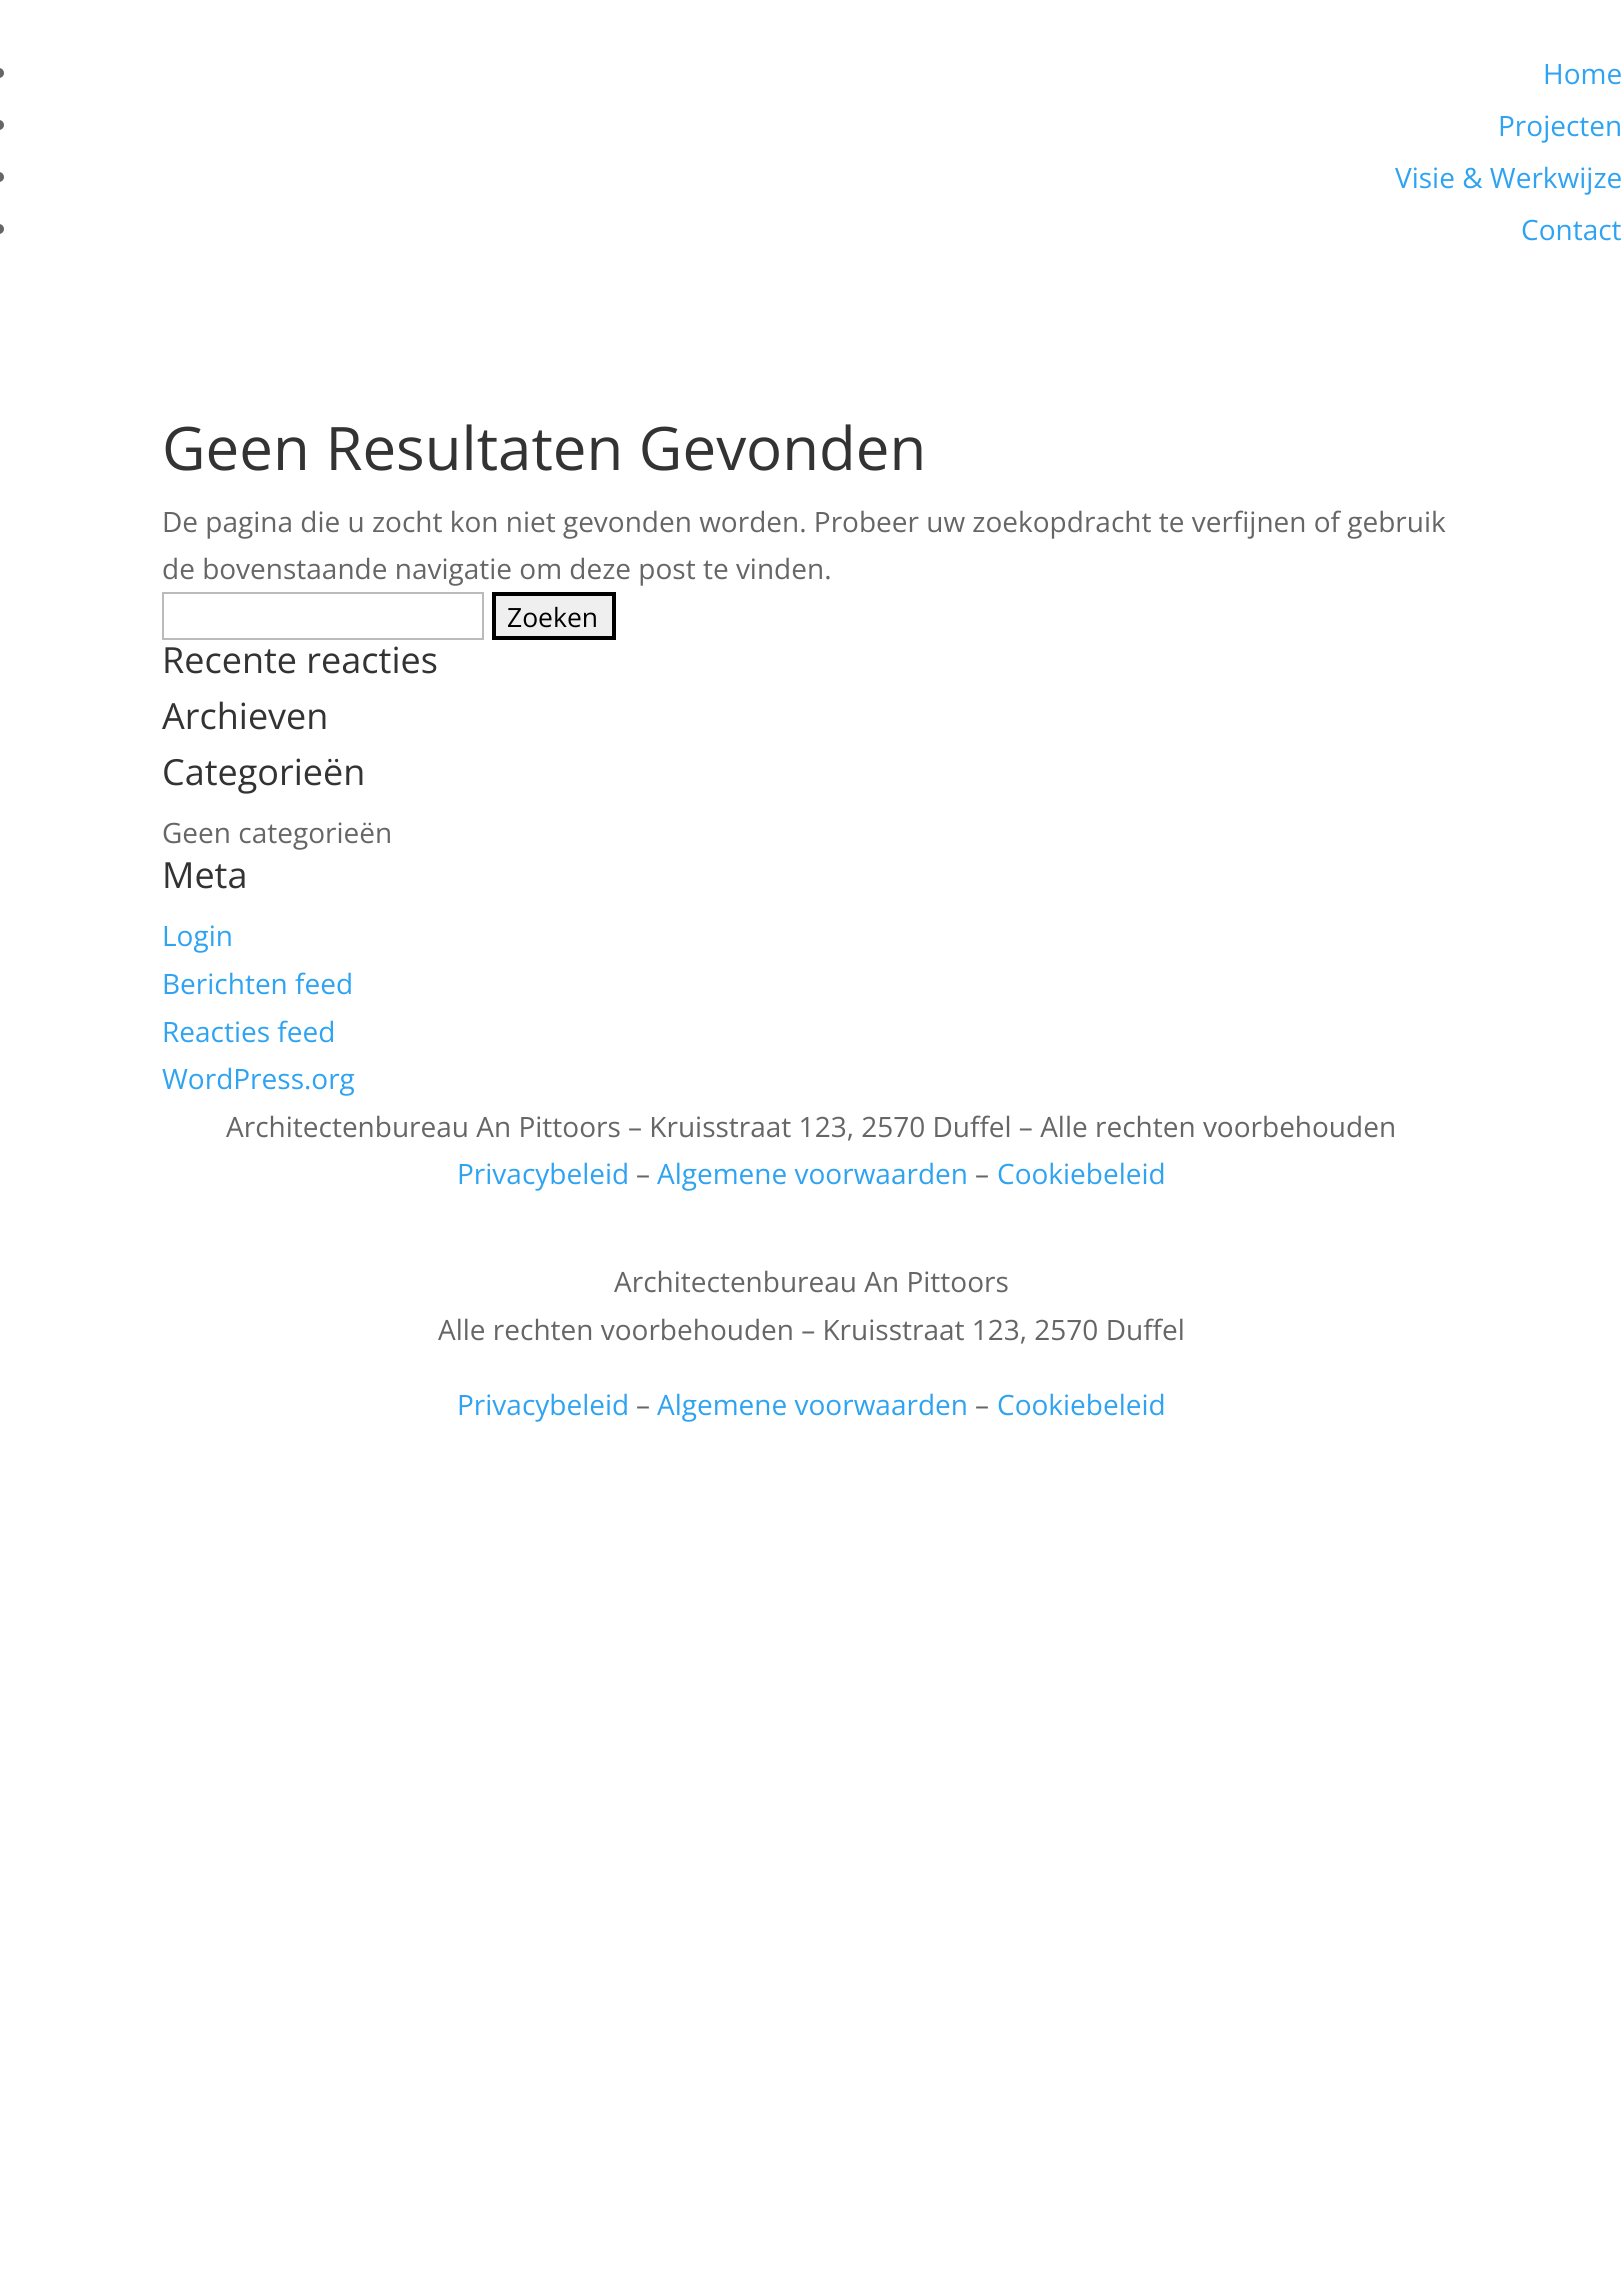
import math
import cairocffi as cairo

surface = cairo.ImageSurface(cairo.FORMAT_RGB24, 1621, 2293)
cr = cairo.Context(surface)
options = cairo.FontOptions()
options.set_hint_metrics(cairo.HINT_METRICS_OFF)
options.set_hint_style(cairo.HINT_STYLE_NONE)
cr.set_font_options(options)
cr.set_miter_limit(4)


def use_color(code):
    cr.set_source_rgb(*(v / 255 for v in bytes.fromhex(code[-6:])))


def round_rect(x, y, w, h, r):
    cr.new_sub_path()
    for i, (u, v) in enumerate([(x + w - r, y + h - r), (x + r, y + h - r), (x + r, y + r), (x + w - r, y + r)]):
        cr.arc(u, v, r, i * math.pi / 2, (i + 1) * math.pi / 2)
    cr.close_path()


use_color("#ffffff")
cr.paint()
use_color("#666666")
round_rect(-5, 68, 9, 10, 5)
cr.fill()
cr.select_font_face("Open Sans")
cr.set_font_size(28)
use_color("#2ea3f2")
cr.move_to(1543, 84)
cr.show_text("Home")
use_color("#666666")
round_rect(-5, 120, 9, 10, 5)
cr.fill()
use_color("#2ea3f2")
cr.move_to(1498, 136)
cr.show_text("Projecten")
use_color("#666666")
round_rect(-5, 172, 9, 10, 5)
cr.fill()
use_color("#2ea3f2")
cr.move_to(1395, 188)
cr.show_text("Visie & Werkwijze")
use_color("#666666")
round_rect(-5, 224, 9, 10, 5)
cr.fill()
use_color("#2ea3f2")
cr.move_to(1521, 240)
cr.show_text("Contact")
cr.set_font_size(60)
use_color("#333333")
cr.move_to(162, 470)
cr.show_text("Geen Resultaten Gevonden")
cr.set_font_size(28)
use_color("#666666")
cr.move_to(162, 532)
cr.show_text("De pagina die u zocht kon niet gevonden worden. Probeer uw zoekopdracht te verfijnen of gebruik")
cr.move_to(162, 579)
cr.show_text("de bovenstaande navigatie om deze post te vinden.")
cr.rectangle(163, 593, 320, 46)
use_color("#bbbbbb")
cr.stroke()
use_color("#efefef")
cr.rectangle(494, 594, 120, 44)
cr.fill_preserve()
use_color("#000000")
cr.set_line_width(4)
cr.stroke()
cr.set_font_size(26.5)
cr.move_to(507, 627)
cr.show_text("Zoeken")
cr.set_font_size(36)
use_color("#333333")
cr.move_to(162, 673)
cr.show_text("Recente reacties")
cr.move_to(162, 729)
cr.show_text("Archieven")
cr.move_to(162, 785)
cr.show_text("Categorieën")
cr.set_font_size(28)
use_color("#666666")
cr.move_to(162, 843)
cr.show_text("Geen categorieën")
cr.set_font_size(36)
use_color("#333333")
cr.move_to(162, 888)
cr.show_text("Meta")
cr.set_font_size(28)
use_color("#2ea3f2")
cr.move_to(162, 946)
cr.show_text("Login")
cr.move_to(162, 994)
cr.show_text("Berichten feed")
cr.move_to(162, 1042)
cr.show_text("Reacties feed")
cr.move_to(162, 1089)
cr.show_text("WordPress.org")
use_color("#666666")
cr.move_to(226, 1137)
cr.show_text("Architectenbureau An Pittoors – Kruisstraat 123, 2570 Duffel – Alle rechten voorbehouden")
use_color("#2ea3f2")
cr.move_to(457, 1184)
cr.show_text("Privacybeleid")
use_color("#666666")
cr.move_to(636, 1184)
cr.show_text("–")
use_color("#2ea3f2")
cr.move_to(657, 1184)
cr.show_text("Algemene voorwaarden")
use_color("#666666")
cr.move_to(975, 1184)
cr.show_text("–")
use_color("#2ea3f2")
cr.move_to(997, 1184)
cr.show_text("Cookiebeleid")
use_color("#666666")
cr.move_to(614, 1292)
cr.show_text("Architectenbureau An Pittoors")
cr.move_to(438, 1340)
cr.show_text("Alle rechten voorbehouden – Kruisstraat 123, 2570 Duffel")
use_color("#2ea3f2")
cr.move_to(457, 1415)
cr.show_text("Privacybeleid")
use_color("#666666")
cr.move_to(636, 1415)
cr.show_text("–")
use_color("#2ea3f2")
cr.move_to(657, 1415)
cr.show_text("Algemene voorwaarden")
use_color("#666666")
cr.move_to(975, 1415)
cr.show_text("–")
use_color("#2ea3f2")
cr.move_to(997, 1415)
cr.show_text("Cookiebeleid")
surface.write_to_png("result.png")
